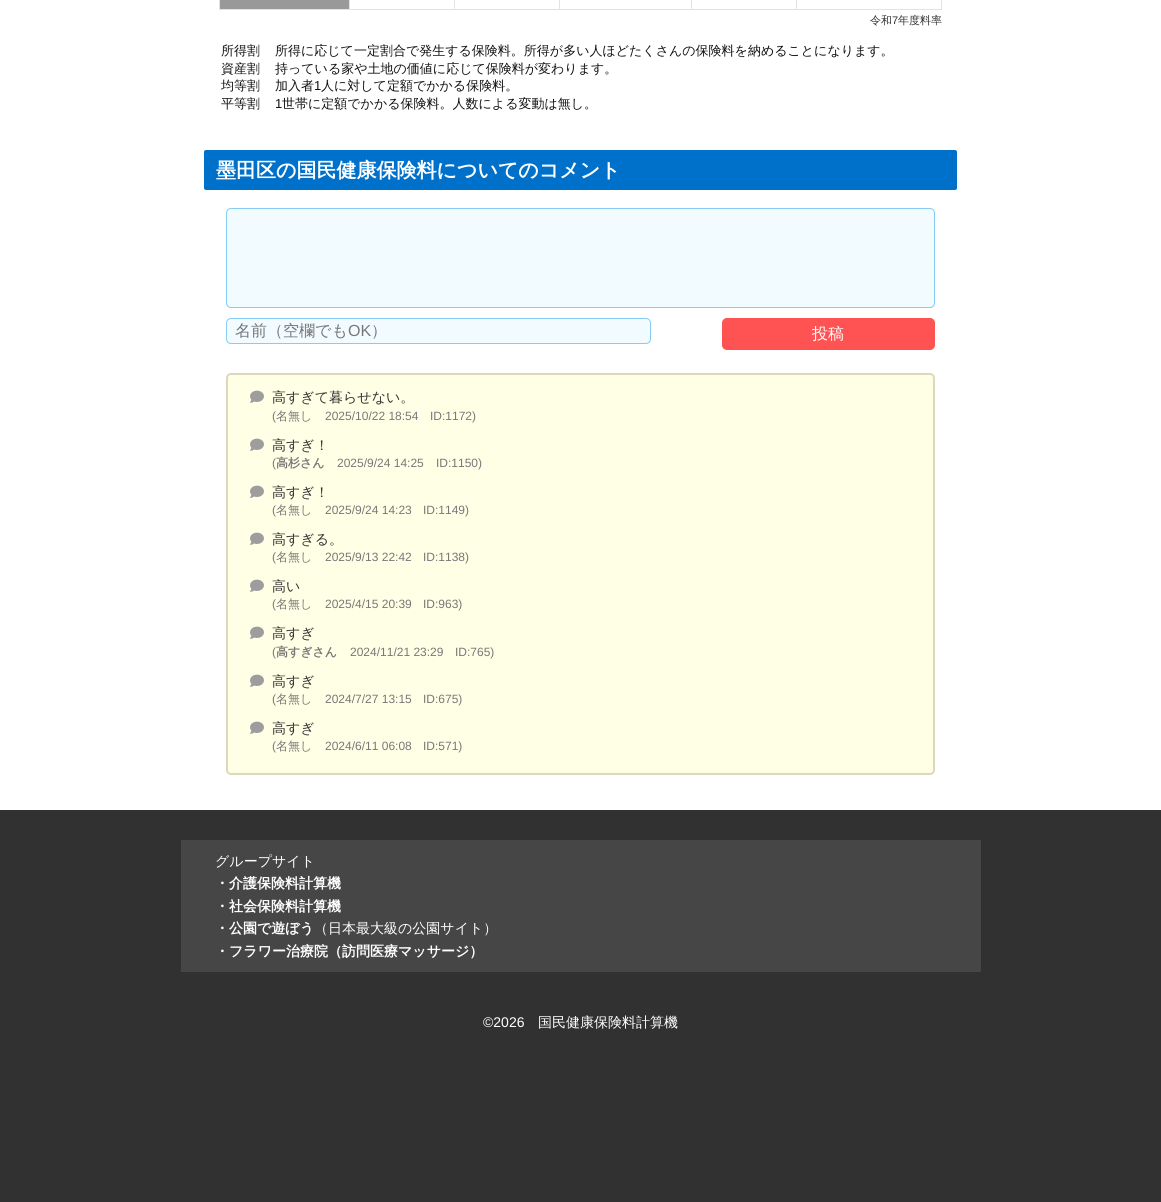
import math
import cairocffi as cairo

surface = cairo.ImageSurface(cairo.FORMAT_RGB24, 1161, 1202)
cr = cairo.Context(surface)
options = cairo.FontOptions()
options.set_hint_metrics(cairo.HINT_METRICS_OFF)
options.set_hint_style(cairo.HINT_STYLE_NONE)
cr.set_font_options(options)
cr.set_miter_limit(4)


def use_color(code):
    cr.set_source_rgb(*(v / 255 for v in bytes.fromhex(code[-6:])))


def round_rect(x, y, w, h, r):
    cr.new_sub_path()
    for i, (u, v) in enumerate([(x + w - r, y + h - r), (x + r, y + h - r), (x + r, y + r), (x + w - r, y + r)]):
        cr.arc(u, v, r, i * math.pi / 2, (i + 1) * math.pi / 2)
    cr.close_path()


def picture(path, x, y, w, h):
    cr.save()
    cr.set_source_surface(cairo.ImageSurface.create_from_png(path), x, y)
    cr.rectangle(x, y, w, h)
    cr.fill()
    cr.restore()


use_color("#ffffff")
cr.paint()
use_color("#999999")
cr.rectangle(220, 0, 129, 9)
cr.fill()
use_color("#e3e3e3")
cr.rectangle(941, 0, 1, 10)
cr.fill()
cr.rectangle(796, 9, 146, 1)
cr.fill()
cr.rectangle(796, 0, 1, 10)
cr.fill()
cr.rectangle(691, 9, 106, 1)
cr.fill()
cr.rectangle(691, 0, 1, 10)
cr.fill()
cr.rectangle(559, 9, 133, 1)
cr.fill()
cr.rectangle(559, 0, 1, 10)
cr.fill()
cr.rectangle(454, 9, 106, 1)
cr.fill()
cr.rectangle(454, 0, 1, 10)
cr.fill()
cr.rectangle(349, 9, 106, 1)
cr.fill()
cr.rectangle(349, 0, 1, 10)
cr.fill()
cr.rectangle(219, 9, 131, 1)
cr.fill()
cr.rectangle(219, 0, 1, 10)
cr.fill()
cr.select_font_face("WenQuanYi Zen Hei Medium")
cr.set_font_size(11)
use_color("#333333")
cr.move_to(870, 24)
cr.show_text("令和")
cr.select_font_face("Liberation Sans")
cr.move_to(892, 24)
cr.show_text("7")
cr.select_font_face("WenQuanYi Zen Hei Medium")
cr.move_to(898, 24)
cr.show_text("年度料率")
cr.set_font_size(13)
use_color("#111111")
cr.move_to(221, 55)
cr.show_text("所得割")
cr.move_to(275, 55)
cr.show_text("所得に応じて一定割合で発生する保険料。所得が多い人ほどたくさんの保険料を納めることになります。")
cr.move_to(221, 73)
cr.show_text("資産割")
cr.move_to(275, 73)
cr.show_text("持っている家や土地の価値に応じて保険料が変わります。")
cr.move_to(221, 90)
cr.show_text("均等割")
cr.move_to(275, 90)
cr.show_text("加入者")
cr.select_font_face("Liberation Sans")
cr.move_to(314, 90)
cr.show_text("1")
cr.select_font_face("WenQuanYi Zen Hei Medium")
cr.move_to(321, 90)
cr.show_text("人に対して定額でかかる保険料。")
cr.move_to(221, 108)
cr.show_text("平等割")
cr.select_font_face("Liberation Sans")
cr.move_to(275, 108)
cr.show_text("1")
cr.select_font_face("WenQuanYi Zen Hei Medium")
cr.move_to(282, 108)
cr.show_text("世帯に定額でかかる保険料。人数による変動は無し。")
use_color("#0071cb")
round_rect(204, 150, 753, 40, 2)
cr.fill()
cr.select_font_face("WenQuanYi Zen Hei", cairo.FONT_SLANT_NORMAL, cairo.FONT_WEIGHT_BOLD)
cr.set_font_size(20)
use_color("#ffffff")
cr.move_to(216, 177)
cr.show_text("墨田区の国民健康保険料についてのコメント")
use_color("#f2fbff")
round_rect(226.5, 208.5, 708, 99, 4.5)
cr.fill_preserve()
use_color("#86ccf3")
cr.set_line_width(1)
cr.stroke()
use_color("#f2fbff")
round_rect(226.5, 318.5, 424, 25, 4.5)
cr.fill_preserve()
use_color("#86ccf3")
cr.stroke()
cr.select_font_face("WenQuanYi Zen Hei Medium")
cr.set_font_size(16)
use_color("#777777")
cr.move_to(235, 336)
cr.show_text("名前（空欄でも")
cr.select_font_face("Liberation Sans")
cr.move_to(348, 336)
cr.show_text("OK")
cr.select_font_face("WenQuanYi Zen Hei Medium")
cr.move_to(371, 336)
cr.show_text("）")
use_color("#ff5252")
round_rect(722, 318, 213, 32, 5)
cr.fill()
use_color("#ffffff")
cr.move_to(812, 339)
cr.show_text("投稿")
use_color("#ffffe6")
round_rect(227, 374, 707, 400, 4)
cr.fill_preserve()
use_color("#ddd8bb")
cr.set_line_width(2)
cr.stroke()
picture("img1.png", 250, 390, 14, 13)
cr.set_font_size(14)
use_color("#333333")
cr.move_to(272, 402)
cr.show_text("高すぎて暮らせない。")
cr.select_font_face("Liberation Sans")
cr.set_font_size(12)
use_color("#777777")
cr.move_to(272, 420)
cr.show_text("(")
cr.select_font_face("WenQuanYi Zen Hei Medium")
cr.move_to(276, 420)
cr.show_text("名無し")
cr.select_font_face("Liberation Sans")
cr.move_to(325, 420)
cr.show_text("2025/10/22 18:54")
cr.move_to(430, 420)
cr.show_text("ID:1172)")
picture("img1.png", 250, 438, 14, 13)
cr.select_font_face("WenQuanYi Zen Hei Medium")
cr.set_font_size(14)
use_color("#333333")
cr.move_to(272, 450)
cr.show_text("高すぎ！")
cr.select_font_face("Liberation Sans")
cr.set_font_size(12)
use_color("#777777")
cr.move_to(272, 467)
cr.show_text("(")
cr.select_font_face("WenQuanYi Zen Hei", cairo.FONT_SLANT_NORMAL, cairo.FONT_WEIGHT_BOLD)
cr.move_to(276, 467)
cr.show_text("高杉さん")
cr.select_font_face("Liberation Sans")
cr.move_to(337, 467)
cr.show_text("2025/9/24 14:25")
cr.move_to(436, 467)
cr.show_text("ID:1150)")
picture("img1.png", 250, 485, 14, 13)
cr.select_font_face("WenQuanYi Zen Hei Medium")
cr.set_font_size(14)
use_color("#333333")
cr.move_to(272, 497)
cr.show_text("高すぎ！")
cr.select_font_face("Liberation Sans")
cr.set_font_size(12)
use_color("#777777")
cr.move_to(272, 514)
cr.show_text("(")
cr.select_font_face("WenQuanYi Zen Hei Medium")
cr.move_to(276, 514)
cr.show_text("名無し")
cr.select_font_face("Liberation Sans")
cr.move_to(325, 514)
cr.show_text("2025/9/24 14:23")
cr.move_to(423, 514)
cr.show_text("ID:1149)")
picture("img1.png", 250, 532, 14, 13)
cr.select_font_face("WenQuanYi Zen Hei Medium")
cr.set_font_size(14)
use_color("#333333")
cr.move_to(272, 544)
cr.show_text("高すぎる。")
cr.select_font_face("Liberation Sans")
cr.set_font_size(12)
use_color("#777777")
cr.move_to(272, 561)
cr.show_text("(")
cr.select_font_face("WenQuanYi Zen Hei Medium")
cr.move_to(276, 561)
cr.show_text("名無し")
cr.select_font_face("Liberation Sans")
cr.move_to(325, 561)
cr.show_text("2025/9/13 22:42")
cr.move_to(423, 561)
cr.show_text("ID:1138)")
picture("img1.png", 250, 579, 14, 13)
cr.select_font_face("WenQuanYi Zen Hei Medium")
cr.set_font_size(14)
use_color("#333333")
cr.move_to(272, 591)
cr.show_text("高い")
cr.select_font_face("Liberation Sans")
cr.set_font_size(12)
use_color("#777777")
cr.move_to(272, 608)
cr.show_text("(")
cr.select_font_face("WenQuanYi Zen Hei Medium")
cr.move_to(276, 608)
cr.show_text("名無し")
cr.select_font_face("Liberation Sans")
cr.move_to(325, 608)
cr.show_text("2025/4/15 20:39")
cr.move_to(423, 608)
cr.show_text("ID:963)")
picture("img1.png", 250, 626, 14, 13)
cr.select_font_face("WenQuanYi Zen Hei Medium")
cr.set_font_size(14)
use_color("#333333")
cr.move_to(272, 638)
cr.show_text("高すぎ")
cr.select_font_face("Liberation Sans")
cr.set_font_size(12)
use_color("#777777")
cr.move_to(272, 656)
cr.show_text("(")
cr.select_font_face("WenQuanYi Zen Hei", cairo.FONT_SLANT_NORMAL, cairo.FONT_WEIGHT_BOLD)
cr.move_to(276, 656)
cr.show_text("高すぎさん")
cr.select_font_face("Liberation Sans")
cr.move_to(350, 656)
cr.show_text("2024/11/21 23:29")
cr.move_to(455, 656)
cr.show_text("ID:765)")
picture("img1.png", 250, 674, 14, 13)
cr.select_font_face("WenQuanYi Zen Hei Medium")
cr.set_font_size(14)
use_color("#333333")
cr.move_to(272, 686)
cr.show_text("高すぎ")
cr.select_font_face("Liberation Sans")
cr.set_font_size(12)
use_color("#777777")
cr.move_to(272, 703)
cr.show_text("(")
cr.select_font_face("WenQuanYi Zen Hei Medium")
cr.move_to(276, 703)
cr.show_text("名無し")
cr.select_font_face("Liberation Sans")
cr.move_to(325, 703)
cr.show_text("2024/7/27 13:15")
cr.move_to(423, 703)
cr.show_text("ID:675)")
picture("img1.png", 250, 721, 14, 13)
cr.select_font_face("WenQuanYi Zen Hei Medium")
cr.set_font_size(14)
use_color("#333333")
cr.move_to(272, 733)
cr.show_text("高すぎ")
cr.select_font_face("Liberation Sans")
cr.set_font_size(12)
use_color("#777777")
cr.move_to(272, 750)
cr.show_text("(")
cr.select_font_face("WenQuanYi Zen Hei Medium")
cr.move_to(276, 750)
cr.show_text("名無し")
cr.select_font_face("Liberation Sans")
cr.move_to(325, 750)
cr.show_text("2024/6/11 06:08")
cr.move_to(423, 750)
cr.show_text("ID:571)")
use_color("#313131")
cr.rectangle(0, 810, 1161, 392)
cr.fill()
use_color("#464646")
cr.rectangle(181, 840, 800, 132)
cr.fill()
cr.select_font_face("WenQuanYi Zen Hei Medium")
cr.set_font_size(14)
use_color("#ffffff")
cr.move_to(215, 866)
cr.show_text("グループサイト")
cr.select_font_face("WenQuanYi Zen Hei", cairo.FONT_SLANT_NORMAL, cairo.FONT_WEIGHT_BOLD)
cr.move_to(215, 888)
cr.show_text("・介護保険料計算機")
cr.move_to(215, 911)
cr.show_text("・社会保険料計算機")
cr.move_to(215, 933)
cr.show_text("・公園で遊ぼう")
cr.select_font_face("WenQuanYi Zen Hei Medium")
cr.move_to(314, 933)
cr.show_text("（日本最大級の公園サイト）")
cr.select_font_face("WenQuanYi Zen Hei", cairo.FONT_SLANT_NORMAL, cairo.FONT_WEIGHT_BOLD)
cr.move_to(215, 956)
cr.show_text("・フラワー治療院（訪問医療マッサージ）")
cr.select_font_face("Liberation Sans")
cr.move_to(483, 1027)
cr.show_text("©2026")
cr.select_font_face("WenQuanYi Zen Hei Medium")
cr.move_to(538, 1027)
cr.show_text("国民健康保険料計算機")
surface.write_to_png("result.png")
